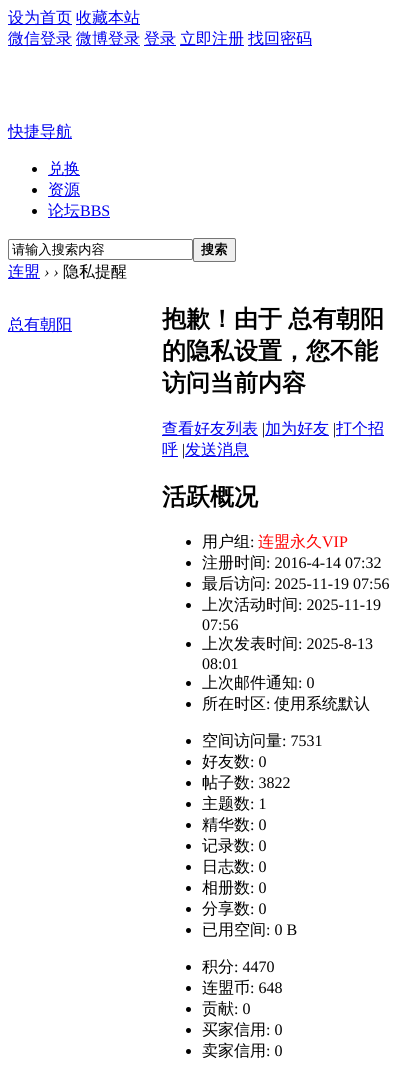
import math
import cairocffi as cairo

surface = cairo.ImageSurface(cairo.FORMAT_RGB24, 404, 1085)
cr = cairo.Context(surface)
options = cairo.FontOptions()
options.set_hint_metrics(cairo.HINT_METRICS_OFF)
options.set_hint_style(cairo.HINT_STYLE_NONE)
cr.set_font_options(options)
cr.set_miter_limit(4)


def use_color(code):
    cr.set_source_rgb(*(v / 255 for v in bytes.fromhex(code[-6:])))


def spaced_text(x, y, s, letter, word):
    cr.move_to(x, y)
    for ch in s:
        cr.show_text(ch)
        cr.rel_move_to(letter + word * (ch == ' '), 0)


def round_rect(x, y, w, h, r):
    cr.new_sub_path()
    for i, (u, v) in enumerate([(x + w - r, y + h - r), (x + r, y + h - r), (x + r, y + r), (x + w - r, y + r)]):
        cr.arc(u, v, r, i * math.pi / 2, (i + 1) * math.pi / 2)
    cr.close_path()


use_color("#ffffff")
cr.paint()
use_color("#0000ee")
cr.rectangle(8, 24, 64, 1)
cr.fill()
cr.select_font_face("WenQuanYi Zen Hei Medium")
cr.set_font_size(16)
cr.move_to(8, 23)
cr.show_text("设为首页")
cr.rectangle(76, 24, 64, 1)
cr.fill()
cr.move_to(76, 23)
cr.show_text("收藏本站")
cr.rectangle(8, 45, 64, 1)
cr.fill()
cr.move_to(8, 44)
cr.show_text("微信登录")
cr.rectangle(76, 45, 64, 1)
cr.fill()
cr.move_to(76, 44)
cr.show_text("微博登录")
cr.rectangle(144, 45, 32, 1)
cr.fill()
cr.move_to(144, 44)
cr.show_text("登录")
cr.rectangle(180, 45, 64, 1)
cr.fill()
cr.move_to(180, 44)
cr.show_text("立即注册")
cr.rectangle(248, 45, 64, 1)
cr.fill()
cr.move_to(248, 44)
cr.show_text("找回密码")
cr.rectangle(8, 138, 64, 1)
cr.fill()
cr.move_to(8, 137)
cr.show_text("快捷导航")
use_color("#000000")
cr.new_path()
cr.arc(34.5, 169.5, 2.5, 0, 2 * math.pi)
cr.fill()
use_color("#0000ee")
cr.rectangle(48, 175, 32, 1)
cr.fill()
cr.move_to(48, 174)
cr.show_text("兑换")
use_color("#000000")
cr.new_path()
cr.arc(34.5, 190.5, 2.5, 0, 2 * math.pi)
cr.fill()
use_color("#0000ee")
cr.rectangle(48, 196, 32, 1)
cr.fill()
cr.move_to(48, 195)
cr.show_text("资源")
use_color("#000000")
cr.new_path()
cr.arc(34.5, 211.5, 2.5, 0, 2 * math.pi)
cr.fill()
use_color("#0000ee")
cr.rectangle(48, 217, 62, 1)
cr.fill()
cr.move_to(48, 216)
cr.show_text("论坛")
cr.select_font_face("Liberation Serif")
cr.move_to(80, 216)
cr.show_text("BBS")
round_rect(8.5, 239.5, 184, 20, 1.5)
use_color("#767676")
cr.set_line_width(1)
cr.stroke()
cr.select_font_face("WenQuanYi Zen Hei Medium")
cr.set_font_size(13.25)
use_color("#000000")
cr.move_to(12, 254)
cr.show_text("请输入搜索内容")
use_color("#efefef")
round_rect(193.5, 238.5, 42, 23, 1.5)
cr.fill_preserve()
use_color("#767676")
cr.stroke()
cr.select_font_face("WenQuanYi Zen Hei", cairo.FONT_SLANT_NORMAL, cairo.FONT_WEIGHT_BOLD)
use_color("#000000")
cr.move_to(201, 254)
cr.show_text("搜索")
use_color("#0000ee")
cr.rectangle(8, 278, 32, 1)
cr.fill()
cr.select_font_face("WenQuanYi Zen Hei Medium")
cr.set_font_size(16)
cr.move_to(8, 277)
cr.show_text("连盟")
cr.select_font_face("Liberation Serif", cairo.FONT_SLANT_ITALIC)
use_color("#000000")
cr.move_to(44, 277)
cr.show_text("› ›")
cr.select_font_face("WenQuanYi Zen Hei Medium")
cr.move_to(63, 277)
cr.show_text("隐私提醒")
use_color("#0000ee")
cr.rectangle(8, 331, 64, 1)
cr.fill()
cr.move_to(8, 330)
cr.show_text("总有朝阳")
cr.select_font_face("WenQuanYi Zen Hei", cairo.FONT_SLANT_NORMAL, cairo.FONT_WEIGHT_BOLD)
cr.set_font_size(24)
use_color("#000000")
spaced_text(162, 327, "抱歉！由于 总有朝阳", 0, -1)
cr.move_to(162, 359)
cr.show_text("的隐私设置，您不能")
cr.move_to(162, 391)
cr.show_text("访问当前内容")
use_color("#0000ee")
cr.rectangle(162, 435, 96, 1)
cr.fill()
cr.select_font_face("WenQuanYi Zen Hei Medium")
cr.set_font_size(16)
cr.move_to(162, 434)
cr.show_text("查看好友列表")
cr.select_font_face("Liberation Serif")
use_color("#000000")
cr.move_to(262, 434)
cr.show_text("|")
use_color("#0000ee")
cr.rectangle(265, 435, 64, 1)
cr.fill()
cr.select_font_face("WenQuanYi Zen Hei Medium")
cr.move_to(265, 434)
cr.show_text("加为好友")
cr.select_font_face("Liberation Serif")
use_color("#000000")
cr.move_to(333, 434)
cr.show_text("|")
use_color("#0000ee")
cr.rectangle(336, 435, 48, 1)
cr.fill()
cr.select_font_face("WenQuanYi Zen Hei Medium")
cr.move_to(336, 434)
cr.show_text("打个招")
cr.rectangle(162, 456, 16, 1)
cr.fill()
cr.move_to(162, 455)
cr.show_text("呼")
cr.select_font_face("Liberation Serif")
use_color("#000000")
cr.move_to(182, 455)
cr.show_text("|")
use_color("#0000ee")
cr.rectangle(185, 456, 64, 1)
cr.fill()
cr.select_font_face("WenQuanYi Zen Hei Medium")
cr.move_to(185, 455)
cr.show_text("发送消息")
cr.select_font_face("WenQuanYi Zen Hei", cairo.FONT_SLANT_NORMAL, cairo.FONT_WEIGHT_BOLD)
cr.set_font_size(24)
use_color("#000000")
cr.move_to(162, 505)
cr.show_text("活跃概况")
cr.new_path()
cr.arc(188.5, 542.5, 2.5, 0, 2 * math.pi)
cr.fill()
cr.select_font_face("WenQuanYi Zen Hei Medium")
cr.set_font_size(16)
cr.move_to(202, 547)
cr.show_text("用户组")
cr.select_font_face("Liberation Serif")
cr.move_to(250, 547)
cr.show_text(":")
cr.select_font_face("WenQuanYi Zen Hei Medium")
use_color("#ff0000")
cr.move_to(258, 547)
cr.show_text("连盟永久")
cr.select_font_face("Liberation Serif")
cr.move_to(322, 547)
cr.show_text("VIP")
use_color("#000000")
cr.new_path()
cr.arc(188.5, 563.5, 2.5, 0, 2 * math.pi)
cr.fill()
cr.select_font_face("WenQuanYi Zen Hei Medium")
cr.move_to(202, 568)
cr.show_text("注册时间")
cr.select_font_face("Liberation Serif")
cr.move_to(266, 568)
cr.show_text(": 2016-4-14 07:32")
cr.new_path()
cr.arc(188.5, 584.5, 2.5, 0, 2 * math.pi)
cr.fill()
cr.select_font_face("WenQuanYi Zen Hei Medium")
cr.move_to(202, 589)
cr.show_text("最后访问")
cr.select_font_face("Liberation Serif")
cr.move_to(266, 589)
cr.show_text(": 2025-11-19 07:56")
cr.new_path()
cr.arc(188.5, 605.5, 2.5, 0, 2 * math.pi)
cr.fill()
cr.select_font_face("WenQuanYi Zen Hei Medium")
cr.move_to(202, 610)
cr.show_text("上次活动时间")
cr.select_font_face("Liberation Serif")
cr.move_to(298, 610)
cr.show_text(": 2025-11-19")
cr.move_to(202, 630)
cr.show_text("07:56")
cr.new_path()
cr.arc(188.5, 644.5, 2.5, 0, 2 * math.pi)
cr.fill()
cr.select_font_face("WenQuanYi Zen Hei Medium")
cr.move_to(202, 649)
cr.show_text("上次发表时间")
cr.select_font_face("Liberation Serif")
cr.move_to(298, 649)
cr.show_text(": 2025-8-13")
cr.move_to(202, 669)
cr.show_text("08:01")
cr.new_path()
cr.arc(188.5, 683.5, 2.5, 0, 2 * math.pi)
cr.fill()
cr.select_font_face("WenQuanYi Zen Hei Medium")
cr.move_to(202, 688)
cr.show_text("上次邮件通知")
cr.select_font_face("Liberation Serif")
cr.move_to(298, 688)
cr.show_text(": 0")
cr.new_path()
cr.arc(188.5, 704.5, 2.5, 0, 2 * math.pi)
cr.fill()
cr.select_font_face("WenQuanYi Zen Hei Medium")
cr.move_to(202, 709)
cr.show_text("所在时区")
cr.select_font_face("Liberation Serif")
cr.move_to(266, 709)
cr.show_text(":")
cr.select_font_face("WenQuanYi Zen Hei Medium")
cr.move_to(274, 709)
cr.show_text("使用系统默认")
cr.new_path()
cr.arc(188.5, 741.5, 2.5, 0, 2 * math.pi)
cr.fill()
cr.move_to(202, 746)
cr.show_text("空间访问量")
cr.select_font_face("Liberation Serif")
cr.move_to(282, 746)
cr.show_text(": 7531")
cr.new_path()
cr.arc(188.5, 762.5, 2.5, 0, 2 * math.pi)
cr.fill()
cr.select_font_face("WenQuanYi Zen Hei Medium")
cr.move_to(202, 767)
cr.show_text("好友数")
cr.select_font_face("Liberation Serif")
cr.move_to(250, 767)
cr.show_text(": 0")
cr.new_path()
cr.arc(188.5, 783.5, 2.5, 0, 2 * math.pi)
cr.fill()
cr.select_font_face("WenQuanYi Zen Hei Medium")
cr.move_to(202, 788)
cr.show_text("帖子数")
cr.select_font_face("Liberation Serif")
cr.move_to(250, 788)
cr.show_text(": 3822")
cr.new_path()
cr.arc(188.5, 804.5, 2.5, 0, 2 * math.pi)
cr.fill()
cr.select_font_face("WenQuanYi Zen Hei Medium")
cr.move_to(202, 809)
cr.show_text("主题数")
cr.select_font_face("Liberation Serif")
cr.move_to(250, 809)
cr.show_text(": 1")
cr.new_path()
cr.arc(188.5, 825.5, 2.5, 0, 2 * math.pi)
cr.fill()
cr.select_font_face("WenQuanYi Zen Hei Medium")
cr.move_to(202, 830)
cr.show_text("精华数")
cr.select_font_face("Liberation Serif")
cr.move_to(250, 830)
cr.show_text(": 0")
cr.new_path()
cr.arc(188.5, 846.5, 2.5, 0, 2 * math.pi)
cr.fill()
cr.select_font_face("WenQuanYi Zen Hei Medium")
cr.move_to(202, 851)
cr.show_text("记录数")
cr.select_font_face("Liberation Serif")
cr.move_to(250, 851)
cr.show_text(": 0")
cr.new_path()
cr.arc(188.5, 867.5, 2.5, 0, 2 * math.pi)
cr.fill()
cr.select_font_face("WenQuanYi Zen Hei Medium")
cr.move_to(202, 872)
cr.show_text("日志数")
cr.select_font_face("Liberation Serif")
cr.move_to(250, 872)
cr.show_text(": 0")
cr.new_path()
cr.arc(188.5, 888.5, 2.5, 0, 2 * math.pi)
cr.fill()
cr.select_font_face("WenQuanYi Zen Hei Medium")
cr.move_to(202, 893)
cr.show_text("相册数")
cr.select_font_face("Liberation Serif")
cr.move_to(250, 893)
cr.show_text(": 0")
cr.new_path()
cr.arc(188.5, 909.5, 2.5, 0, 2 * math.pi)
cr.fill()
cr.select_font_face("WenQuanYi Zen Hei Medium")
cr.move_to(202, 914)
cr.show_text("分享数")
cr.select_font_face("Liberation Serif")
cr.move_to(250, 914)
cr.show_text(": 0")
cr.new_path()
cr.arc(188.5, 930.5, 2.5, 0, 2 * math.pi)
cr.fill()
cr.select_font_face("WenQuanYi Zen Hei Medium")
cr.move_to(202, 935)
cr.show_text("已用空间")
cr.select_font_face("Liberation Serif")
cr.move_to(266, 935)
cr.show_text(": 0 B")
cr.new_path()
cr.arc(188.5, 967.5, 2.5, 0, 2 * math.pi)
cr.fill()
cr.select_font_face("WenQuanYi Zen Hei Medium")
cr.move_to(202, 972)
cr.show_text("积分")
cr.select_font_face("Liberation Serif")
cr.move_to(234, 972)
cr.show_text(": 4470")
cr.new_path()
cr.arc(188.5, 988.5, 2.5, 0, 2 * math.pi)
cr.fill()
cr.select_font_face("WenQuanYi Zen Hei Medium")
cr.move_to(202, 993)
cr.show_text("连盟币")
cr.select_font_face("Liberation Serif")
cr.move_to(250, 993)
cr.show_text(": 648")
cr.new_path()
cr.arc(188.5, 1009.5, 2.5, 0, 2 * math.pi)
cr.fill()
cr.select_font_face("WenQuanYi Zen Hei Medium")
cr.move_to(202, 1014)
cr.show_text("贡献")
cr.select_font_face("Liberation Serif")
cr.move_to(234, 1014)
cr.show_text(": 0")
cr.new_path()
cr.arc(188.5, 1030.5, 2.5, 0, 2 * math.pi)
cr.fill()
cr.select_font_face("WenQuanYi Zen Hei Medium")
cr.move_to(202, 1035)
cr.show_text("买家信用")
cr.select_font_face("Liberation Serif")
cr.move_to(266, 1035)
cr.show_text(": 0")
cr.new_path()
cr.arc(188.5, 1051.5, 2.5, 0, 2 * math.pi)
cr.fill()
cr.select_font_face("WenQuanYi Zen Hei Medium")
cr.move_to(202, 1056)
cr.show_text("卖家信用")
cr.select_font_face("Liberation Serif")
cr.move_to(266, 1056)
cr.show_text(": 0")
surface.write_to_png("result.png")
